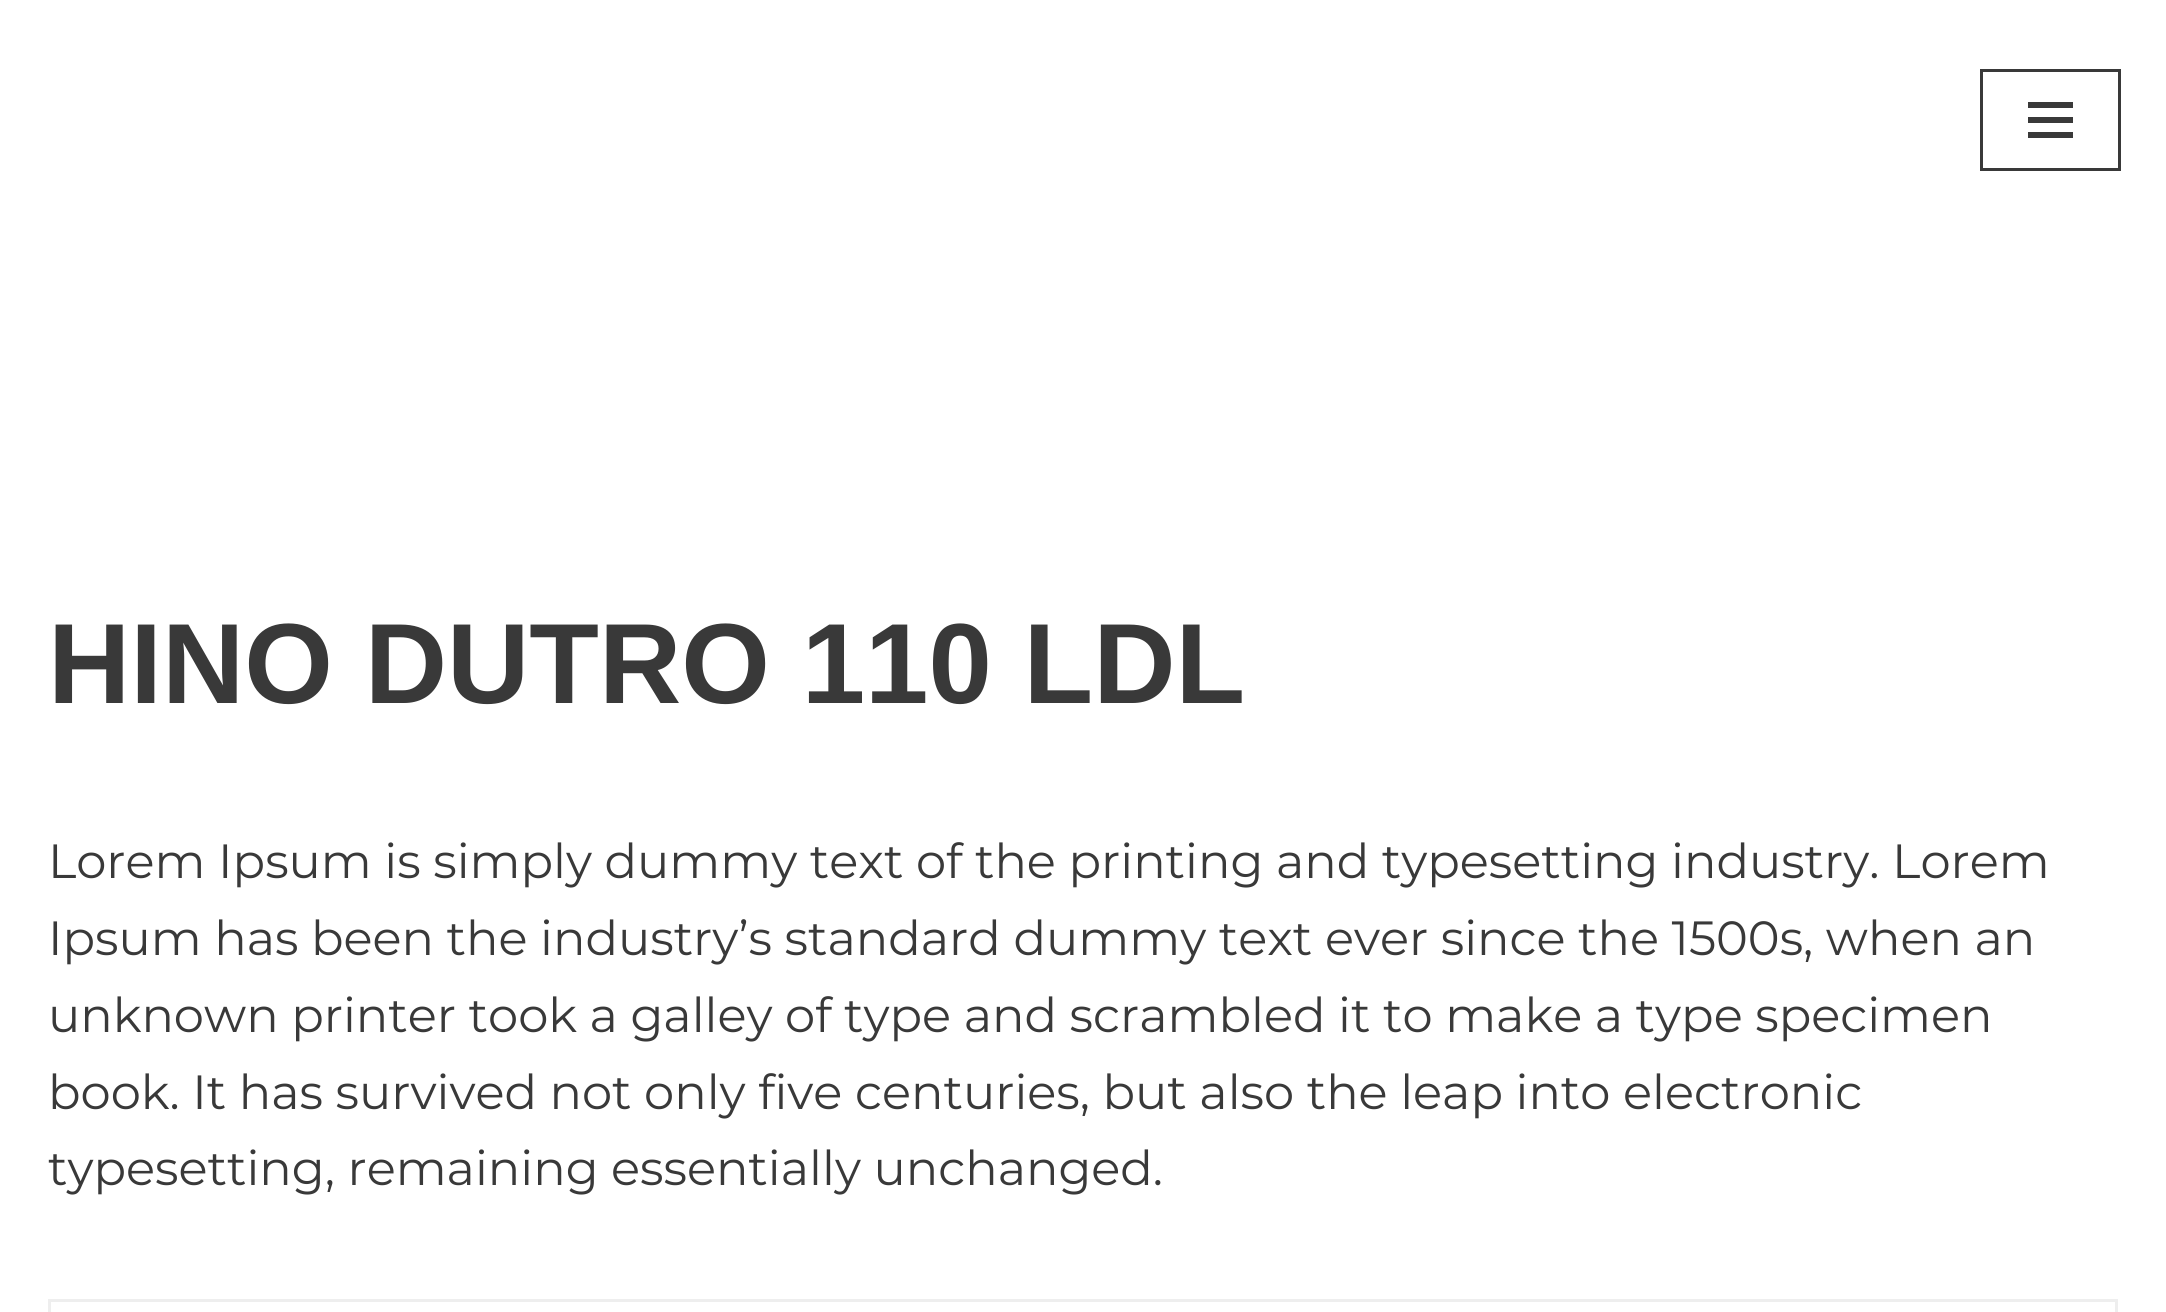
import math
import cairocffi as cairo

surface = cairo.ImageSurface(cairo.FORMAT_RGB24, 2166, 1312)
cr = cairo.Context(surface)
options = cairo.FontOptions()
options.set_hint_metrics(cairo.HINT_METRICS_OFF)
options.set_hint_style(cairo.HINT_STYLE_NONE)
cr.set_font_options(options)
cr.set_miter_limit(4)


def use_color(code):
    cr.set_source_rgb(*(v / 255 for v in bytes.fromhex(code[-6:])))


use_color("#ffffff")
cr.paint()
cr.rectangle(1981.5, 70.5, 138, 99)
use_color("#393939")
cr.set_line_width(3)
cr.stroke()
cr.rectangle(2028, 102, 45, 6)
cr.fill()
cr.rectangle(2028, 117, 45, 6)
cr.fill()
cr.rectangle(2028, 132, 45, 6)
cr.fill()
cr.select_font_face("Liberation Sans", cairo.FONT_SLANT_NORMAL, cairo.FONT_WEIGHT_BOLD)
cr.set_font_size(114)
cr.move_to(48, 703)
cr.show_text("HINO DUTRO 110 LDL")
cr.select_font_face("Montserrat")
cr.set_font_size(48)
cr.move_to(48, 878)
cr.show_text("Lorem Ipsum is simply dummy text of the printing and typesetting industry. Lorem")
cr.move_to(48, 955)
cr.show_text("Ipsum has been the industry’s standard dummy text ever since the 1500s, when an")
cr.move_to(48, 1032)
cr.show_text("unknown printer took a galley of type and scrambled it to make a type specimen")
cr.move_to(48, 1109)
cr.show_text("book. It has survived not only five centuries, but also the leap into electronic")
cr.move_to(48, 1185)
cr.show_text("typesetting, remaining essentially unchanged.")
cr.rectangle(49.5, 1300.5, 2067, 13)
use_color("#eeeeee")
cr.stroke()
surface.write_to_png("result.png")
